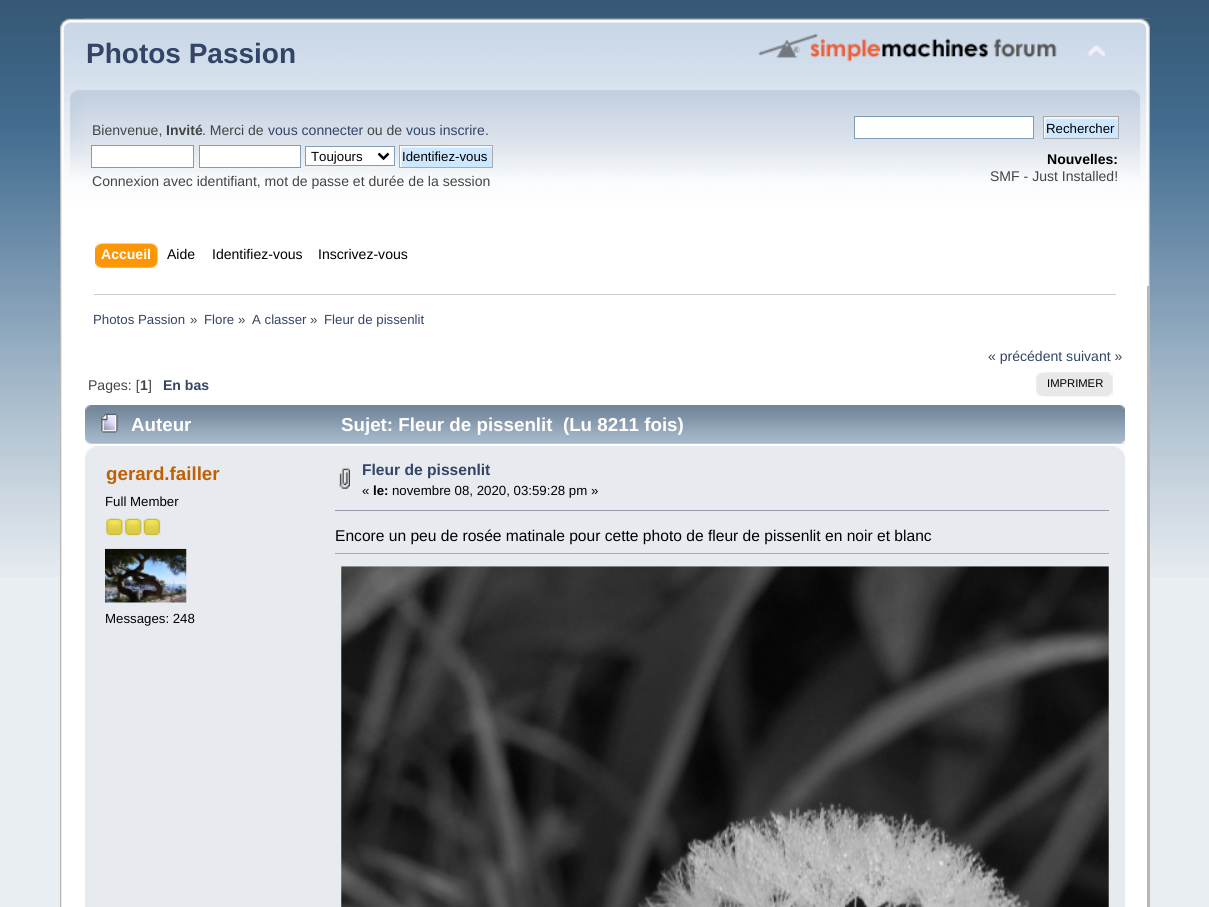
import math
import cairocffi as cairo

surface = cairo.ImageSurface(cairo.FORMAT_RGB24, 1209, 907)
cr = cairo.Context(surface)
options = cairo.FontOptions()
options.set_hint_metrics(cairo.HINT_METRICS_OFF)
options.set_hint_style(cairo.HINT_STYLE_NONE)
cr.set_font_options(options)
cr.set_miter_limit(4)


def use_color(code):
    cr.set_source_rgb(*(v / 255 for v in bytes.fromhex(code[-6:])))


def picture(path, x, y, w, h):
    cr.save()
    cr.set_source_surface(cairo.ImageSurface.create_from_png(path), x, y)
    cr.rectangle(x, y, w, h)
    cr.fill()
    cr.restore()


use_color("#e9eef2")
cr.paint()
picture("img1.png", 0, 0, 1209, 577)
picture("img2.png", 60, 18, 1090, 268)
picture("img3.png", 85, 18, 1065, 268)
cr.select_font_face("Liberation Sans", cairo.FONT_SLANT_NORMAL, cairo.FONT_WEIGHT_BOLD)
cr.set_font_size(28)
use_color("#334466")
cr.move_to(86, 63)
cr.show_text("Photos Passion")
picture("img4.png", 758, 33, 299, 29)
picture("img5.png", 1087, 44, 19, 15)
cr.select_font_face("Liberation Sans")
cr.set_font_size(14.05)
use_color("#444444")
cr.move_to(92, 135)
cr.show_text("Bienvenue,")
cr.select_font_face("Liberation Sans", cairo.FONT_SLANT_NORMAL, cairo.FONT_WEIGHT_BOLD)
cr.move_to(166, 135)
cr.show_text("Invité")
cr.select_font_face("Liberation Sans")
cr.move_to(202, 135)
cr.show_text(". Merci de")
use_color("#334466")
cr.move_to(268, 135)
cr.show_text("vous connecter")
use_color("#444444")
cr.move_to(367, 135)
cr.show_text("ou de")
use_color("#334466")
cr.move_to(406, 135)
cr.show_text("vous inscrire")
use_color("#444444")
cr.move_to(485, 135)
cr.show_text(".")
use_color("#ffffff")
cr.rectangle(91.5, 145.5, 102, 22)
cr.fill_preserve()
use_color("#7f9db9")
cr.set_line_width(1)
cr.stroke()
use_color("#ffffff")
cr.rectangle(199.5, 145.5, 101, 22)
cr.fill_preserve()
use_color("#7f9db9")
cr.stroke()
use_color("#ffffff")
cr.rectangle(305.5, 146.5, 89, 19)
cr.fill_preserve()
use_color("#7f9db9")
cr.stroke()
cr.new_path()
cr.move_to(378.5, 153.5)
cr.line_to(383.5, 158.5)
cr.line_to(388.5, 153.5)
use_color("#000000")
cr.set_line_width(2.5)
cr.stroke()
cr.set_font_size(13.25)
cr.move_to(311, 161)
cr.show_text("Toujours")
picture("img6.png", 400, 146, 92, 21)
cr.rectangle(399.5, 145.5, 93, 22)
use_color("#aaaaaa")
cr.set_line_width(1)
cr.stroke()
use_color("#000000")
cr.move_to(402, 161)
cr.show_text("Identifiez-vous")
cr.set_font_size(14.05)
use_color("#444444")
cr.move_to(92, 186)
cr.show_text("Connexion avec identifiant, mot de passe et durée de la session")
use_color("#ffffff")
cr.rectangle(854.5, 116.5, 179, 22)
cr.fill_preserve()
use_color("#7f9db9")
cr.stroke()
use_color("#cde7ff")
cr.rectangle(1044, 117, 74, 1)
cr.fill()
picture("img7.png", 1044, 117, 74, 21)
cr.rectangle(1043.5, 116.5, 75, 22)
use_color("#aaaaaa")
cr.stroke()
cr.set_font_size(13.25)
use_color("#000000")
cr.move_to(1046, 133)
cr.show_text("Rechercher")
cr.select_font_face("Liberation Sans", cairo.FONT_SLANT_NORMAL, cairo.FONT_WEIGHT_BOLD)
cr.set_font_size(14.05)
cr.move_to(1047, 164)
cr.show_text("Nouvelles:")
cr.select_font_face("Liberation Sans")
use_color("#444444")
cr.move_to(990, 181)
cr.show_text("SMF - Just Installed!")
picture("img8.png", 101, 243, 57, 25)
picture("img9.png", 95, 243, 57, 25)
cr.select_font_face("Liberation Sans", cairo.FONT_SLANT_NORMAL, cairo.FONT_WEIGHT_BOLD)
use_color("#ffffff")
cr.move_to(101, 259)
cr.show_text("Accueil")
cr.select_font_face("Liberation Sans")
use_color("#000000")
cr.move_to(167, 259)
cr.show_text("Aide")
cr.move_to(212, 259)
cr.show_text("Identifiez-vous")
cr.move_to(318, 259)
cr.show_text("Inscrivez-vous")
use_color("#ffffff")
cr.rectangle(60, 286, 1087, 621)
cr.fill()
picture("img10.png", 60, 286, 2, 621)
use_color("#b7b7b7")
cr.rectangle(1147, 286, 3, 621)
cr.fill()
use_color("#cccccc")
cr.rectangle(94, 294, 1022, 1)
cr.fill()
cr.set_font_size(13.25)
use_color("#334466")
cr.move_to(93, 324)
cr.show_text("Photos Passion")
use_color("#444444")
cr.move_to(190, 324)
cr.show_text("»")
use_color("#334466")
cr.move_to(204, 324)
cr.show_text("Flore")
use_color("#444444")
cr.move_to(238, 324)
cr.show_text("»")
use_color("#334466")
cr.move_to(252, 324)
cr.show_text("A classer")
use_color("#444444")
cr.move_to(310, 324)
cr.show_text("»")
use_color("#334466")
cr.move_to(324, 324)
cr.show_text("Fleur de pissenlit")
cr.set_font_size(14.05)
cr.move_to(988, 361)
cr.show_text("« précédent suivant »")
use_color("#444444")
cr.move_to(88, 390)
cr.show_text("Pages: [")
cr.select_font_face("Liberation Sans", cairo.FONT_SLANT_NORMAL, cairo.FONT_WEIGHT_BOLD)
cr.move_to(140, 390)
cr.show_text("1")
cr.select_font_face("Liberation Sans")
cr.move_to(148, 390)
cr.show_text("]")
cr.select_font_face("Liberation Sans", cairo.FONT_SLANT_NORMAL, cairo.FONT_WEIGHT_BOLD)
use_color("#334466")
cr.move_to(163, 390)
cr.show_text("En bas")
picture("img11.png", 1036, 372, 77, 25)
picture("img12.png", 1046, 372, 67, 25)
cr.select_font_face("Liberation Sans")
cr.set_font_size(11.25)
use_color("#000000")
cr.move_to(1047, 387)
cr.show_text("IMPRIMER")
picture("img13.png", 85, 405, 1040, 39)
picture("img14.png", 1119, 405, 6, 39)
picture("img15.png", 101, 413, 17, 20)
cr.select_font_face("Liberation Sans", cairo.FONT_SLANT_NORMAL, cairo.FONT_WEIGHT_BOLD)
cr.set_font_size(18.75)
use_color("#ffffff")
cr.move_to(131, 431)
cr.show_text("Auteur")
cr.move_to(341, 431)
cr.show_text("Sujet: Fleur de pissenlit  (Lu 8211 fois)")
use_color("#e7eaef")
cr.rectangle(85, 446, 1040, 461)
cr.fill()
picture("img16.png", 85, 446, 10, 11)
picture("img17.png", 1115, 446, 10, 10)
use_color("#c06002")
cr.move_to(106, 480)
cr.show_text("gerard.failler")
cr.select_font_face("Liberation Sans")
cr.set_font_size(13.25)
use_color("#000000")
cr.move_to(105, 506)
cr.show_text("Full Member")
picture("img18.png", 106, 518, 17, 18)
picture("img19.png", 124, 518, 18, 18)
picture("img20.png", 143, 518, 18, 18)
picture("img21.png", 105, 548, 82, 55)
cr.move_to(105, 623)
cr.show_text("Messages: 248")
picture("img22.png", 338, 467, 12, 22)
cr.select_font_face("Liberation Sans", cairo.FONT_SLANT_NORMAL, cairo.FONT_WEIGHT_BOLD)
cr.set_font_size(15.6)
use_color("#334466")
cr.move_to(362, 475)
cr.show_text("Fleur de pissenlit")
cr.select_font_face("Liberation Sans")
cr.set_font_size(13.25)
use_color("#000000")
cr.move_to(362, 495)
cr.show_text("«")
cr.select_font_face("Liberation Sans", cairo.FONT_SLANT_NORMAL, cairo.FONT_WEIGHT_BOLD)
cr.move_to(373, 495)
cr.show_text("le:")
cr.select_font_face("Liberation Sans")
cr.move_to(392, 495)
cr.show_text("novembre 08, 2020, 03:59:28 pm »")
use_color("#9999aa")
cr.rectangle(335, 510, 774, 1)
cr.fill()
cr.set_font_size(15.6)
use_color("#000000")
cr.move_to(335, 541)
cr.show_text("Encore un peu de rosée matinale pour cette photo de fleur de pissenlit en noir et blanc")
use_color("#aaaaaa")
cr.rectangle(335, 553, 774, 1)
cr.fill()
picture("img23.png", 341, 566, 768, 341)
surface.write_to_png("result.png")
